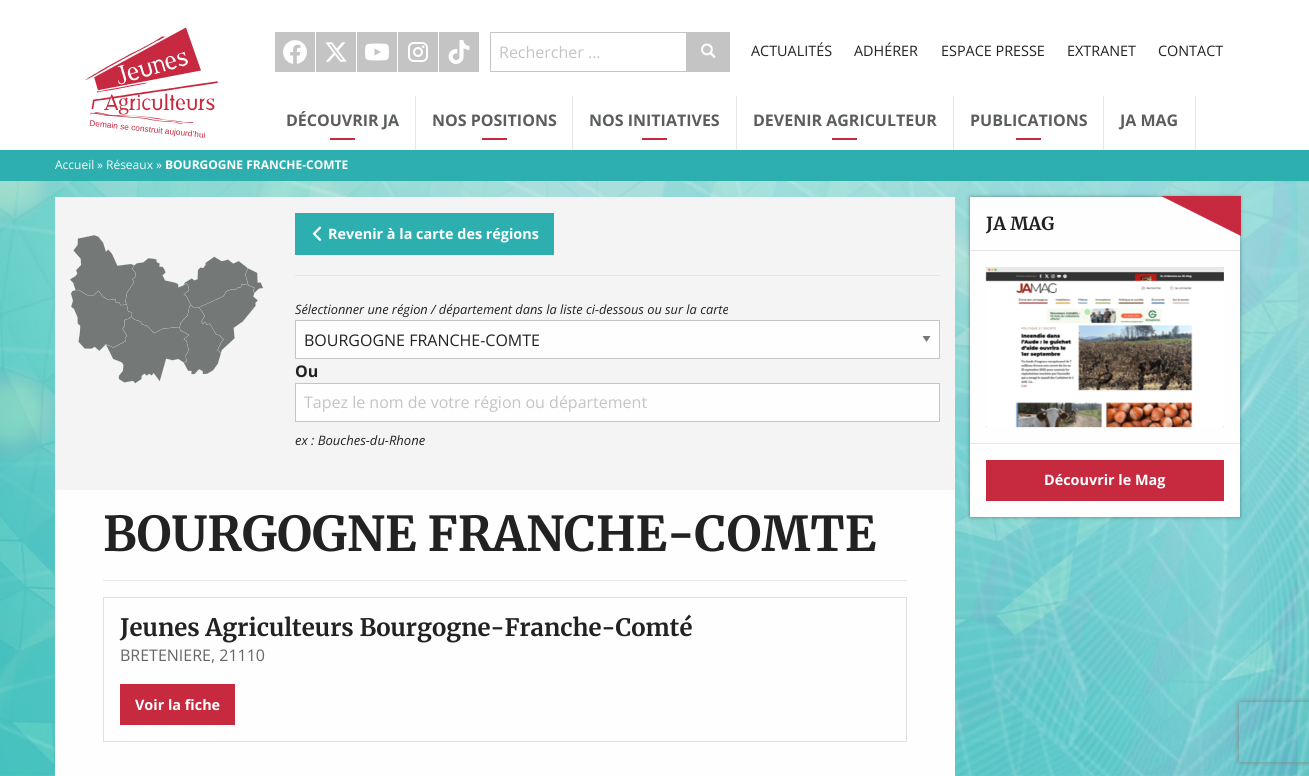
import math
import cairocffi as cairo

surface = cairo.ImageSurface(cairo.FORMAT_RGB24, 1309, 776)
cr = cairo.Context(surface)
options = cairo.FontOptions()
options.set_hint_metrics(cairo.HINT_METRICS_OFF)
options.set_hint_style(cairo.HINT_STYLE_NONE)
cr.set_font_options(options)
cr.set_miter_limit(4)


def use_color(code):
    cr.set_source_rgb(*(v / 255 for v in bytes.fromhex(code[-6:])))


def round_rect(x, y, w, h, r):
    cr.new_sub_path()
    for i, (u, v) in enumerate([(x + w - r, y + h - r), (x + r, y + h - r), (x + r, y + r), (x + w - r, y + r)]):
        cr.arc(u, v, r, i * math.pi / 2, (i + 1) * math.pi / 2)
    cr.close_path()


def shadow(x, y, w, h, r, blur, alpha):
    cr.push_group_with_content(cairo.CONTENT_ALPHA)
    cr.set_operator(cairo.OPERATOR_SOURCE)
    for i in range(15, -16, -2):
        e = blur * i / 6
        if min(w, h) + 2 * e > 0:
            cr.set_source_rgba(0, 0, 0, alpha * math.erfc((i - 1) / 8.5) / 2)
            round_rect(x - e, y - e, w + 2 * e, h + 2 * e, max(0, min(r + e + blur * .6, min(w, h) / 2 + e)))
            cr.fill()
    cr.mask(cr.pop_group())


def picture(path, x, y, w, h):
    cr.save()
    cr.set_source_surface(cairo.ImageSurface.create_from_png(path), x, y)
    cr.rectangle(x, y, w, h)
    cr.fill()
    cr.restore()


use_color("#ffffff")
cr.paint()
picture("img1.png", 0, 181, 1309, 595)
picture("img2.png", 85, 27, 133, 111)
use_color("#c4c4c4")
cr.rectangle(275, 32, 40, 40)
cr.fill()
picture("img3.png", 283, 40, 24, 24)
cr.rectangle(316, 32, 40, 40)
cr.fill()
picture("img4.png", 325, 42, 22, 20)
cr.rectangle(357, 32, 40, 40)
cr.fill()
picture("img5.png", 365, 43, 24, 18)
cr.rectangle(398, 32, 40, 40)
cr.fill()
picture("img6.png", 408, 42, 20, 20)
cr.rectangle(439, 32, 40, 40)
cr.fill()
picture("img7.png", 448, 40, 22, 24)
cr.rectangle(490.5, 32.5, 196, 39)
cr.set_line_width(1)
cr.stroke()
cr.select_font_face("Open Sans")
cr.set_font_size(16)
cr.move_to(499, 58)
cr.show_text("Rechercher …")
cr.rectangle(687, 32, 43, 40)
cr.fill()
picture("img8.png", 701, 43, 15, 15)
cr.set_font_size(14.4)
use_color("#222222")
cr.move_to(751, 56)
cr.show_text("ACTUALITÉS")
cr.move_to(854, 56)
cr.show_text("ADHÉRER")
cr.move_to(941, 56)
cr.show_text("ESPACE PRESSE")
cr.move_to(1067, 56)
cr.show_text("EXTRANET")
cr.move_to(1158, 56)
cr.show_text("CONTACT")
use_color("#e6e6e6")
cr.rectangle(415, 96, 1, 54)
cr.fill()
cr.select_font_face("Open Sans", cairo.FONT_SLANT_NORMAL, cairo.FONT_WEIGHT_BOLD)
cr.set_font_size(16)
use_color("#5b5e5d")
cr.move_to(286, 126)
cr.show_text("DÉCOUVRIR JA")
use_color("#c7293f")
cr.rectangle(330, 138, 25, 2)
cr.fill()
use_color("#e6e6e6")
cr.rectangle(572, 96, 1, 54)
cr.fill()
use_color("#5b5e5d")
cr.move_to(432, 126)
cr.show_text("NOS POSITIONS")
use_color("#c7293f")
cr.rectangle(482, 138, 25, 2)
cr.fill()
use_color("#e6e6e6")
cr.rectangle(736, 96, 1, 54)
cr.fill()
use_color("#5b5e5d")
cr.move_to(589, 126)
cr.show_text("NOS INITIATIVES")
use_color("#c7293f")
cr.rectangle(642, 138, 25, 2)
cr.fill()
use_color("#e6e6e6")
cr.rectangle(953, 96, 1, 54)
cr.fill()
use_color("#5b5e5d")
cr.move_to(753, 126)
cr.show_text("DEVENIR AGRICULTEUR")
use_color("#c7293f")
cr.rectangle(832, 138, 25, 2)
cr.fill()
use_color("#e6e6e6")
cr.rectangle(1103, 96, 1, 54)
cr.fill()
use_color("#5b5e5d")
cr.move_to(970, 126)
cr.show_text("PUBLICATIONS")
use_color("#c7293f")
cr.rectangle(1016, 138, 25, 2)
cr.fill()
use_color("#e6e6e6")
cr.rectangle(1195, 96, 1, 54)
cr.fill()
use_color("#5b5e5d")
cr.move_to(1120, 126)
cr.show_text("JA MAG")
use_color("#2eafaf")
cr.rectangle(0, 150, 1309, 31)
cr.fill()
cr.select_font_face("Open Sans")
cr.set_font_size(12)
use_color("#f5fbfb")
cr.move_to(55, 169)
cr.show_text("Accueil")
use_color("#fefefe")
cr.move_to(97, 169)
cr.show_text("»")
use_color("#f5fbfb")
cr.move_to(106, 169)
cr.show_text("Réseaux")
use_color("#fefefe")
cr.move_to(156, 169)
cr.show_text("»")
cr.select_font_face("Open Sans", cairo.FONT_SLANT_NORMAL, cairo.FONT_WEIGHT_BOLD)
cr.move_to(165, 169)
cr.show_text("BOURGOGNE FRANCHE-COMTE")
cr.rectangle(55, 490, 900, 286)
cr.fill()
use_color("#f4f4f4")
cr.rectangle(55, 197, 900, 293)
cr.fill()
picture("img9.png", 70, 235, 193, 149)
use_color("#2eafaf")
cr.rectangle(295, 213, 259, 42)
cr.fill()
picture("img10.png", 312, 226, 10, 15)
cr.set_font_size(14.4)
use_color("#fefefe")
cr.move_to(328, 239)
cr.show_text("Revenir à la carte des régions")
use_color("#e6e6e6")
cr.rectangle(295, 275, 645, 1)
cr.fill()
cr.select_font_face("Open Sans", cairo.FONT_SLANT_ITALIC)
cr.set_font_size(12.8)
use_color("#222222")
cr.move_to(295, 314)
cr.show_text("Sélectionner une région / département dans la liste ci-dessous ou sur la carte")
use_color("#fefefe")
cr.rectangle(296, 321, 643, 37)
cr.fill()
use_color("#747877")
cr.new_path()
cr.move_to(922.5, 336)
cr.line_to(930.5, 336)
cr.line_to(926.5, 342)
cr.close_path()
cr.fill()
cr.rectangle(295.5, 320.5, 644, 38)
use_color("#c4c4c4")
cr.stroke()
cr.select_font_face("Open Sans")
cr.set_font_size(16)
use_color("#222222")
cr.move_to(304, 346)
cr.show_text("BOURGOGNE FRANCHE-COMTE")
cr.select_font_face("Open Sans", cairo.FONT_SLANT_NORMAL, cairo.FONT_WEIGHT_BOLD)
cr.move_to(295, 377)
cr.show_text("Ou")
use_color("#fefefe")
cr.rectangle(295.5, 383.5, 644, 38)
cr.fill_preserve()
use_color("#c4c4c4")
cr.stroke()
cr.select_font_face("Open Sans")
cr.move_to(304, 408)
cr.show_text("Tapez le nom de votre région ou département")
cr.select_font_face("Open Sans", cairo.FONT_SLANT_ITALIC)
cr.set_font_size(13)
use_color("#222222")
cr.move_to(295, 445)
cr.show_text("ex : Bouches-du-Rhone")
use_color("#e6e6e6")
cr.rectangle(103, 580, 804, 1)
cr.fill()
cr.select_font_face("Merriweather Light")
cr.set_font_size(48)
use_color("#222222")
cr.move_to(103, 551)
cr.show_text("BOURGOGNE FRANCHE-COMTE")
cr.rectangle(103.5, 597.5, 803, 144)
use_color("#e0e0e0")
cr.stroke()
cr.set_font_size(24)
use_color("#222222")
cr.move_to(120, 636)
cr.show_text("Jeunes Agriculteurs Bourgogne-Franche-Comté")
cr.select_font_face("Open Sans")
cr.set_font_size(16)
use_color("#666666")
cr.move_to(120, 661)
cr.show_text("BRETENIERE, 21110")
use_color("#c7293f")
cr.rectangle(120, 684, 115, 41)
cr.fill()
cr.select_font_face("Open Sans", cairo.FONT_SLANT_NORMAL, cairo.FONT_WEIGHT_BOLD)
cr.set_font_size(14.4)
use_color("#fefefe")
cr.move_to(135, 710)
cr.show_text("Voir la fiche")
use_color("#000000")
shadow(970, 197, 270, 320, 0, 2, 0.4)
use_color("#fefefe")
cr.rectangle(970, 197, 270, 320)
cr.fill()
use_color("#e6e6e6")
cr.rectangle(970, 250, 270, 1)
cr.fill()
cr.select_font_face("Merriweather Light")
cr.set_font_size(18)
use_color("#222222")
cr.move_to(986, 230)
cr.show_text("JA MAG")
use_color("#c7293f")
cr.new_path()
cr.move_to(1161, 196)
cr.line_to(1241, 196)
cr.line_to(1241, 236)
cr.close_path()
cr.fill()
picture("img11.png", 985, 267, 239, 161)
use_color("#e6e6e6")
cr.rectangle(970, 443, 270, 1)
cr.fill()
use_color("#c7293f")
cr.rectangle(986, 460, 238, 41)
cr.fill()
cr.select_font_face("Open Sans", cairo.FONT_SLANT_NORMAL, cairo.FONT_WEIGHT_BOLD)
cr.set_font_size(14.4)
use_color("#fefefe")
cr.move_to(1044, 485)
cr.show_text("Découvrir le Mag")
cr.save()
cr.set_fill_rule(cairo.FILL_RULE_EVEN_ODD)
cr.new_path()
cr.move_to(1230, 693)
cr.line_to(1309, 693)
cr.line_to(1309, 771)
cr.line_to(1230, 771)
cr.close_path()
cr.move_to(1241, 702)
cr.line_to(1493, 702)
cr.curve_to(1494, 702, 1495, 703, 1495, 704)
cr.line_to(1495, 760)
cr.curve_to(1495, 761, 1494, 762, 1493, 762)
cr.line_to(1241, 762)
cr.curve_to(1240, 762, 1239, 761, 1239, 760)
cr.line_to(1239, 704)
cr.curve_to(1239, 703, 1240, 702, 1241, 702)
cr.close_path()
cr.clip()
use_color("#808080")
shadow(1239, 702, 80, 60, 2, 2.5, 1)
cr.restore()
surface.write_to_png("result.png")
